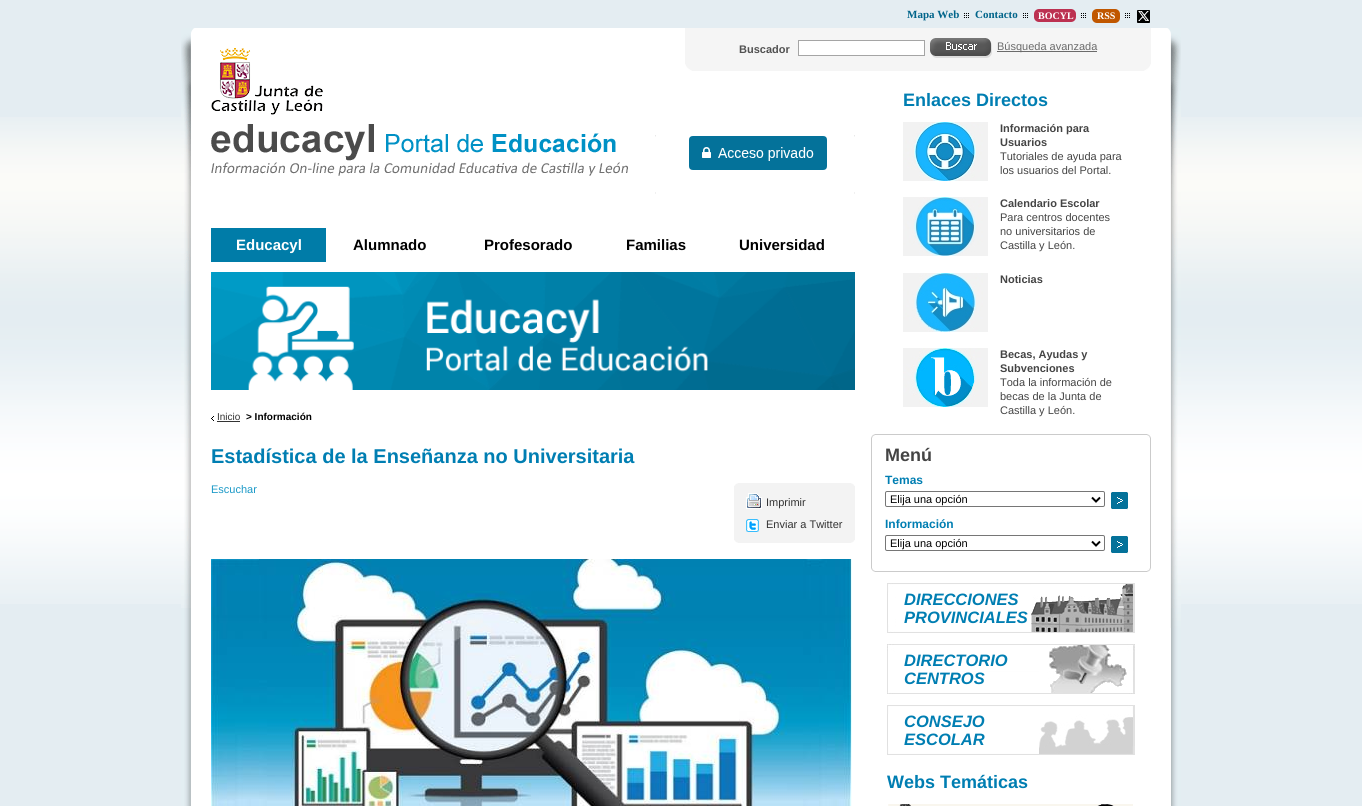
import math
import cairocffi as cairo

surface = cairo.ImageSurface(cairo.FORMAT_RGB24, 1362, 806)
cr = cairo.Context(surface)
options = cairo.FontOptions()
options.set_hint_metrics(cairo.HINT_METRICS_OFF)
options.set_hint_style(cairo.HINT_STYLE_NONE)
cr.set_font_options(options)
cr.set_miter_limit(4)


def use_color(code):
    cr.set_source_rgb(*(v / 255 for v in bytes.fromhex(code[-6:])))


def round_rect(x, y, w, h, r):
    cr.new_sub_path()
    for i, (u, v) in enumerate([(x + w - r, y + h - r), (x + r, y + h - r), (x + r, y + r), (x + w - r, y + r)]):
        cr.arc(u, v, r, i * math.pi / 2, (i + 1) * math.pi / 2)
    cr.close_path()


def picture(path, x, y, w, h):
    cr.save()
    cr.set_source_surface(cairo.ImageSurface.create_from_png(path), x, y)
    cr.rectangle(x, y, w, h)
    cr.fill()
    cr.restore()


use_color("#e4edf2")
cr.paint()
picture("img1.png", 0, 117, 1362, 487)
use_color("#ffffff")
cr.rectangle(191, 28, 980, 778)
cr.fill()
picture("img2.png", 181, 608, 10, 198)
picture("img3.png", 1171, 628, 10, 178)
picture("img4.png", 181, 28, 18, 580)
picture("img5.png", 1163, 28, 18, 600)
cr.select_font_face("Liberation Serif", cairo.FONT_SLANT_NORMAL, cairo.FONT_WEIGHT_BOLD)
cr.set_font_size(11)
use_color("#00648a")
cr.move_to(907, 18)
cr.show_text("Mapa Web")
picture("img6.png", 964, 13, 5, 5)
cr.move_to(975, 18)
cr.show_text("Contacto")
picture("img6.png", 1023, 13, 5, 5)
use_color("#bc3151")
round_rect(1034, 9, 42, 13, 5)
cr.fill()
cr.set_font_size(10)
use_color("#ffffff")
cr.move_to(1038, 19)
cr.show_text("BOCYL")
picture("img6.png", 1081, 13, 5, 5)
use_color("#c05700")
round_rect(1092, 9, 28, 14, 5)
cr.fill()
use_color("#ffffff")
cr.move_to(1097, 19)
cr.show_text("RSS")
picture("img6.png", 1125, 13, 5, 5)
picture("img7.png", 1137, 10, 13, 13)
picture("img8.png", 211, 48, 112, 67)
use_color("#f5f5f5")
cr.rectangle(685, 28, 466, 43)
cr.fill()
picture("img9.png", 685, 64, 7, 7)
picture("img10.png", 1144, 64, 7, 7)
cr.select_font_face("Liberation Sans", cairo.FONT_SLANT_NORMAL, cairo.FONT_WEIGHT_BOLD)
cr.set_font_size(11)
use_color("#515151")
cr.move_to(739, 53)
cr.show_text("Buscador")
use_color("#ffffff")
cr.rectangle(798.5, 40.5, 126, 15)
cr.fill_preserve()
use_color("#a5a5a5")
cr.set_line_width(1)
cr.stroke()
picture("img11.png", 930, 38, 62, 20)
use_color("#6b6b6b")
cr.rectangle(997, 51, 100, 1)
cr.fill()
cr.select_font_face("Liberation Sans")
cr.move_to(997, 50)
cr.show_text("Búsqueda avanzada")
picture("img12.png", 211, 124, 417, 52)
picture("img13.png", 655, 135, 200, 59)
use_color("#007ca8")
cr.rectangle(211, 228, 115, 34)
cr.fill()
cr.select_font_face("Liberation Sans", cairo.FONT_SLANT_NORMAL, cairo.FONT_WEIGHT_BOLD)
cr.set_font_size(15)
use_color("#ffffff")
cr.move_to(236, 250)
cr.show_text("Educacyl")
use_color("#000000")
cr.move_to(353, 250)
cr.show_text("Alumnado")
cr.move_to(484, 250)
cr.show_text("Profesorado")
cr.move_to(626, 250)
cr.show_text("Familias")
cr.move_to(739, 250)
cr.show_text("Universidad")
picture("img14.png", 211, 272, 644, 118)
picture("img15.png", 211, 416, 3, 5)
cr.select_font_face("Liberation Sans")
cr.set_font_size(10)
use_color("#333333")
cr.move_to(217, 420)
cr.show_text("Inicio")
cr.rectangle(217, 421, 23, 1)
cr.fill()
cr.select_font_face("Liberation Sans", cairo.FONT_SLANT_NORMAL, cairo.FONT_WEIGHT_BOLD)
use_color("#000000")
cr.move_to(246, 420)
cr.show_text("> Información")
cr.set_font_size(20)
use_color("#007eb2")
cr.move_to(211, 463)
cr.show_text("Estadística de la Enseñanza no Universitaria")
cr.select_font_face("Liberation Sans")
cr.set_font_size(11)
use_color("#1b99c7")
cr.move_to(211, 493)
cr.show_text("Escuchar")
picture("img16.png", 211, 559, 641, 247)
use_color("#f3f3f3")
cr.rectangle(734, 483, 121, 60)
cr.fill()
picture("img17.png", 734, 483, 4, 3)
picture("img18.png", 851, 483, 4, 3)
picture("img19.png", 746, 493, 16, 16)
use_color("#333333")
cr.move_to(766, 506)
cr.show_text("Imprimir")
picture("img20.png", 746, 519, 13, 13)
cr.move_to(766, 528)
cr.show_text("Enviar a Twitter")
picture("img21.png", 734, 540, 4, 3)
picture("img22.png", 851, 540, 4, 3)
cr.select_font_face("Liberation Sans", cairo.FONT_SLANT_NORMAL, cairo.FONT_WEIGHT_BOLD)
cr.set_font_size(18)
use_color("#007eb2")
cr.move_to(903, 106)
cr.show_text("Enlaces Directos")
picture("img23.png", 903, 122, 85, 59)
cr.set_font_size(11)
use_color("#444444")
cr.move_to(1000, 132)
cr.show_text("Información para")
cr.move_to(1000, 146)
cr.show_text("Usuarios")
cr.select_font_face("Liberation Sans")
cr.move_to(1000, 160)
cr.show_text("Tutoriales de ayuda para")
cr.move_to(1000, 174)
cr.show_text("los usuarios del Portal.")
picture("img24.png", 903, 197, 85, 59)
cr.select_font_face("Liberation Sans", cairo.FONT_SLANT_NORMAL, cairo.FONT_WEIGHT_BOLD)
cr.move_to(1000, 207)
cr.show_text("Calendario Escolar")
cr.select_font_face("Liberation Sans")
cr.move_to(1000, 221)
cr.show_text("Para centros docentes")
cr.move_to(1000, 235)
cr.show_text("no universitarios de")
cr.move_to(1000, 249)
cr.show_text("Castilla y León.")
picture("img25.png", 903, 273, 85, 59)
cr.select_font_face("Liberation Sans", cairo.FONT_SLANT_NORMAL, cairo.FONT_WEIGHT_BOLD)
cr.move_to(1000, 283)
cr.show_text("Noticias")
picture("img26.png", 903, 348, 85, 59)
cr.move_to(1000, 358)
cr.show_text("Becas, Ayudas y")
cr.move_to(1000, 372)
cr.show_text("Subvenciones")
cr.select_font_face("Liberation Sans")
cr.move_to(1000, 386)
cr.show_text("Toda la información de")
cr.move_to(1000, 400)
cr.show_text("becas de la Junta de")
cr.move_to(1000, 414)
cr.show_text("Castilla y León.")
cr.rectangle(871.5, 434.5, 279, 137)
use_color("#cbcbcb")
cr.stroke()
picture("img27.png", 871, 434, 4, 4)
picture("img28.png", 1147, 434, 4, 4)
cr.select_font_face("Liberation Sans", cairo.FONT_SLANT_NORMAL, cairo.FONT_WEIGHT_BOLD)
cr.set_font_size(18)
use_color("#444444")
cr.move_to(885, 461)
cr.show_text("Menú")
cr.set_font_size(12)
use_color("#007eb2")
cr.move_to(885, 484)
cr.show_text("Temas")
round_rect(885.5, 491.5, 219, 15, 1.5)
use_color("#767676")
cr.stroke()
cr.new_path()
cr.move_to(1092, 497.5)
cr.line_to(1096, 501.5)
cr.line_to(1100, 497.5)
use_color("#000000")
cr.set_line_width(2)
cr.stroke()
cr.select_font_face("Liberation Sans")
cr.set_font_size(11)
cr.move_to(890, 503)
cr.show_text("Elija una opción")
picture("img29.png", 1111, 492, 17, 18)
cr.select_font_face("Liberation Sans", cairo.FONT_SLANT_NORMAL, cairo.FONT_WEIGHT_BOLD)
cr.set_font_size(12)
use_color("#007eb2")
cr.move_to(885, 528)
cr.show_text("Información")
round_rect(885.5, 535.5, 219, 15, 1.5)
use_color("#767676")
cr.set_line_width(1)
cr.stroke()
cr.new_path()
cr.move_to(1092, 541.5)
cr.line_to(1096, 545.5)
cr.line_to(1100, 541.5)
use_color("#000000")
cr.set_line_width(2)
cr.stroke()
cr.select_font_face("Liberation Sans")
cr.set_font_size(11)
cr.move_to(890, 547)
cr.show_text("Elija una opción")
picture("img29.png", 1111, 536, 17, 18)
picture("img30.png", 871, 568, 4, 4)
picture("img31.png", 1147, 568, 4, 4)
picture("img32.png", 887, 583, 248, 50)
cr.select_font_face("Liberation Sans", cairo.FONT_SLANT_ITALIC, cairo.FONT_WEIGHT_BOLD)
cr.set_font_size(16.5)
use_color("#007eb2")
cr.move_to(904, 605)
cr.show_text("DIRECCIONES")
cr.move_to(904, 623)
cr.show_text("PROVINCIALES")
picture("img33.png", 887, 644, 248, 50)
cr.move_to(904, 666)
cr.show_text("DIRECTORIO")
cr.move_to(904, 684)
cr.show_text("CENTROS")
picture("img34.png", 887, 705, 248, 50)
cr.move_to(904, 727)
cr.show_text("CONSEJO")
cr.move_to(904, 745)
cr.show_text("ESCOLAR")
cr.select_font_face("Liberation Sans", cairo.FONT_SLANT_NORMAL, cairo.FONT_WEIGHT_BOLD)
cr.set_font_size(18)
cr.move_to(887, 788)
cr.show_text("Webs Temáticas")
picture("img35.png", 888, 804, 245, 2)
surface.write_to_png("result.png")
